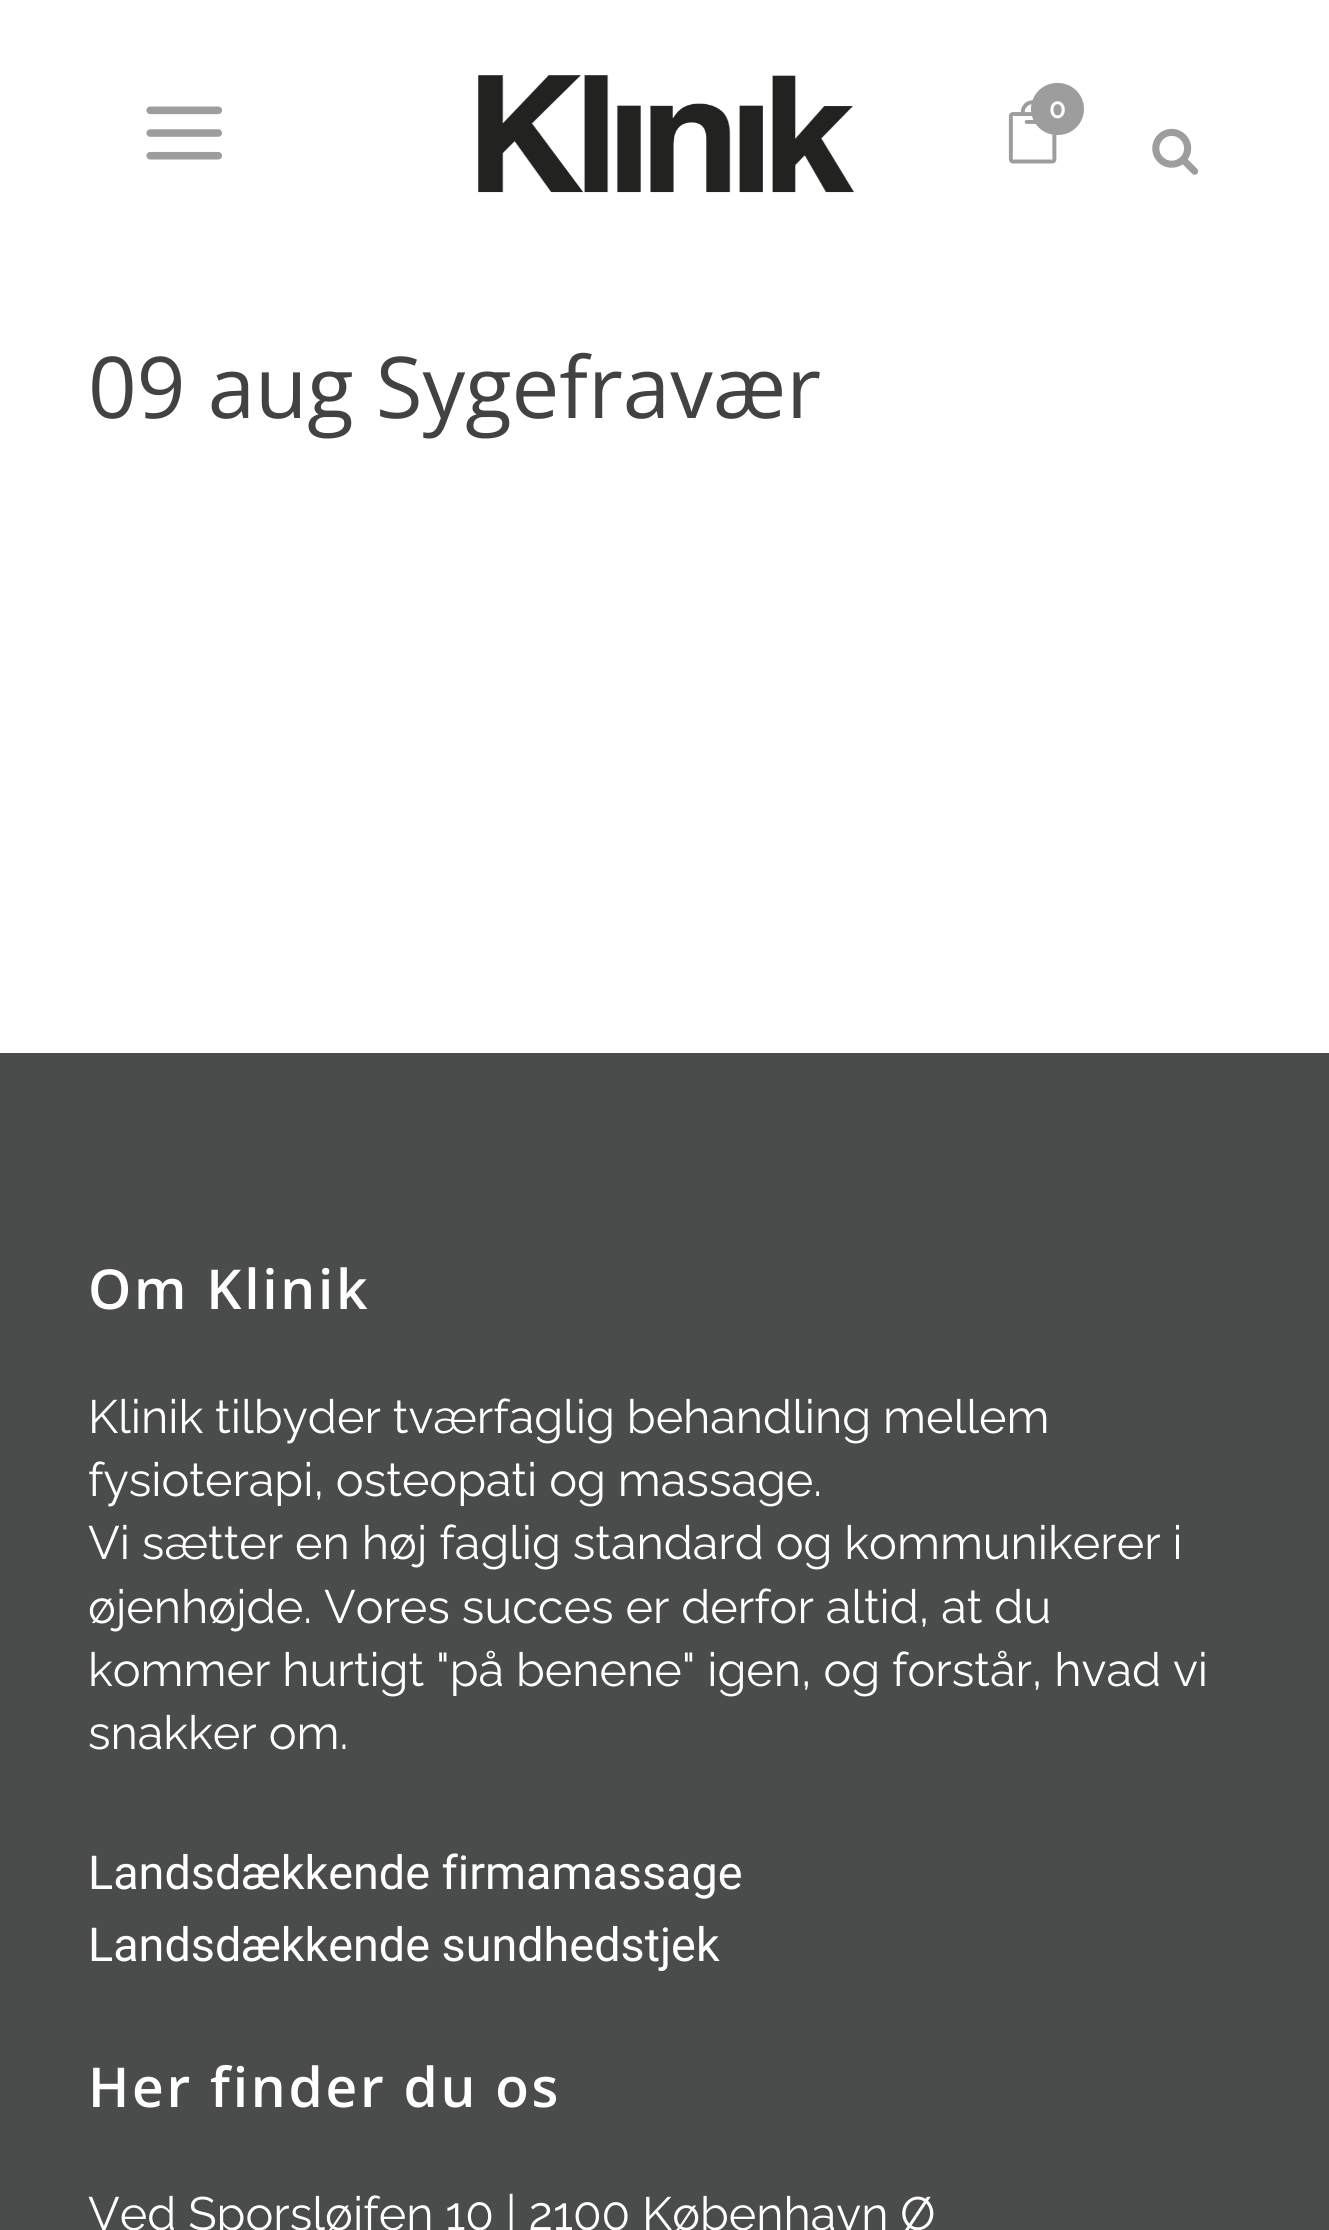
import math
import cairocffi as cairo

surface = cairo.ImageSurface(cairo.FORMAT_RGB24, 1329, 2230)
cr = cairo.Context(surface)
options = cairo.FontOptions()
options.set_hint_metrics(cairo.HINT_METRICS_OFF)
options.set_hint_style(cairo.HINT_STYLE_NONE)
cr.set_font_options(options)
cr.set_miter_limit(4)


def use_color(code):
    cr.set_source_rgb(*(v / 255 for v in bytes.fromhex(code[-6:])))


def spaced_text(x, y, s, letter, word):
    cr.move_to(x, y)
    for ch in s:
        cr.show_text(ch)
        cr.rel_move_to(letter + word * (ch == ' '), 0)


def round_rect(x, y, w, h, r):
    cr.new_sub_path()
    for i, (u, v) in enumerate([(x + w - r, y + h - r), (x + r, y + h - r), (x + r, y + r), (x + w - r, y + r)]):
        cr.arc(u, v, r, i * math.pi / 2, (i + 1) * math.pi / 2)
    cr.close_path()


def picture(path, x, y, w, h):
    cr.save()
    cr.set_source_surface(cairo.ImageSurface.create_from_png(path), x, y)
    cr.rectangle(x, y, w, h)
    cr.fill()
    cr.restore()


use_color("#ffffff")
cr.paint()
picture("img1.png", 146, 106, 76, 54)
picture("img2.png", 478, 75, 376, 118)
picture("img3.png", 1008, 100, 49, 64)
use_color("#9d9d9d")
round_rect(1031, 83, 53, 52, 26)
cr.fill()
cr.select_font_face("Raleway SemiBold")
cr.set_font_size(28)
use_color("#ffffff")
cr.move_to(1049, 118)
cr.show_text("0")
picture("img4.png", 1152, 128, 47, 47)
cr.select_font_face("Open Sans")
cr.set_font_size(85.25)
use_color("#424242")
cr.move_to(88, 418)
cr.show_text("09 aug Sygefravær")
use_color("#4a4c4b")
cr.rectangle(0, 1053, 1329, 1177)
cr.fill()
cr.select_font_face("Open Sans SemiBold")
cr.set_font_size(55)
use_color("#ffffff")
spaced_text(88, 1309, "Om Klinik", 2.75, 0)
cr.select_font_face("Raleway")
cr.set_font_size(46.75)
cr.move_to(88, 1433)
cr.show_text("Klinik tilbyder tværfaglig behandling mellem")
cr.move_to(88, 1496)
cr.show_text("fysioterapi, osteopati og massage.")
cr.move_to(88, 1559)
cr.show_text("Vi sætter en høj faglig standard og kommunikerer i")
cr.move_to(88, 1623)
cr.show_text("øjenhøjde. Vores succes er derfor altid, at du")
cr.move_to(88, 1686)
cr.show_text("kommer hurtigt \"på benene\" igen, og forstår, hvad vi")
cr.move_to(88, 1749)
cr.show_text("snakker om.")
cr.select_font_face("Roboto")
cr.move_to(88, 1889)
cr.show_text("Landsdækkende firmamassage")
cr.move_to(88, 1961)
cr.show_text("Landsdækkende sundhedstjek")
cr.select_font_face("Open Sans SemiBold")
cr.set_font_size(55)
spaced_text(88, 2107, "Her finder du os", 2.75, 0)
cr.select_font_face("Raleway")
cr.set_font_size(46.75)
cr.move_to(88, 2230)
cr.show_text("Ved Sporsløjfen 10 | 2100 København Ø")
surface.write_to_png("result.png")
